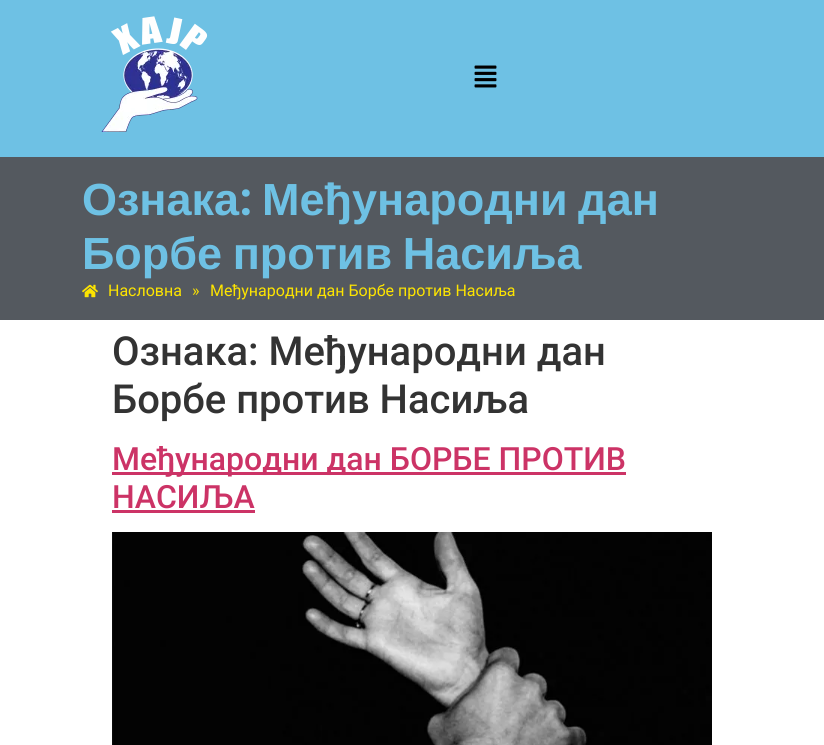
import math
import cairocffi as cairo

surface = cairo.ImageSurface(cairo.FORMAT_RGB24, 824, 745)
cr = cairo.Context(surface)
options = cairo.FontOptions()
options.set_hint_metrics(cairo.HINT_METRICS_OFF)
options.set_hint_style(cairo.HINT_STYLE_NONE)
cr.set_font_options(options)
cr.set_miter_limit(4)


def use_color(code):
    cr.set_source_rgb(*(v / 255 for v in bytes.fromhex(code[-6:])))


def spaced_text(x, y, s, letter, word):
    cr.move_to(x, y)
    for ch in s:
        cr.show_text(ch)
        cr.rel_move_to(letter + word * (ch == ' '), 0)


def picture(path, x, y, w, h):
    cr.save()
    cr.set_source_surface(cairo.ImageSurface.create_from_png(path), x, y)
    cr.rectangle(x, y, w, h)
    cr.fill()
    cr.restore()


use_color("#ffffff")
cr.paint()
use_color("#6ec1e4")
cr.rectangle(0, 0, 824, 157)
cr.fill()
picture("img1.png", 101, 16, 107, 116)
picture("img2.png", 474, 65, 23, 23)
use_color("#54595f")
cr.rectangle(0, 157, 824, 163)
cr.fill()
cr.select_font_face("Liberation Sans", cairo.FONT_SLANT_NORMAL, cairo.FONT_WEIGHT_BOLD)
cr.set_font_size(45)
use_color("#6ec1e4")
cr.move_to(82, 215)
cr.show_text("Ознака")
cr.select_font_face("Poppins SemiBold")
cr.move_to(240, 215)
cr.show_text(":")
cr.select_font_face("Liberation Sans", cairo.FONT_SLANT_NORMAL, cairo.FONT_WEIGHT_BOLD)
spaced_text(262, 215, "Међународни дан", 0, -2)
spaced_text(82, 269, "Борбе против Насиља", 0, -2)
picture("img3.png", 82, 284, 16, 14)
cr.select_font_face("Roboto")
cr.set_font_size(16)
use_color("#fde400")
cr.move_to(108, 296)
cr.show_text("Насловна")
cr.move_to(192, 296)
cr.show_text("»")
cr.move_to(210, 296)
cr.show_text("Међународни дан Борбе против Насиља")
cr.select_font_face("Roboto Medium")
cr.set_font_size(40)
use_color("#333333")
cr.move_to(112, 365)
cr.show_text("Ознака: Међународни дан")
cr.move_to(112, 413)
cr.show_text("Борбе против Насиља")
use_color("#cc3366")
cr.rectangle(112, 472, 514, 3)
cr.fill()
cr.set_font_size(32)
cr.move_to(112, 470)
cr.show_text("Међународни дан БОРБЕ ПРОТИВ")
cr.move_to(112, 508)
cr.show_text("НАСИЉА")
cr.rectangle(112, 510, 143, 3)
cr.fill()
picture("img4.png", 112, 532, 600, 213)
surface.write_to_png("result.png")
